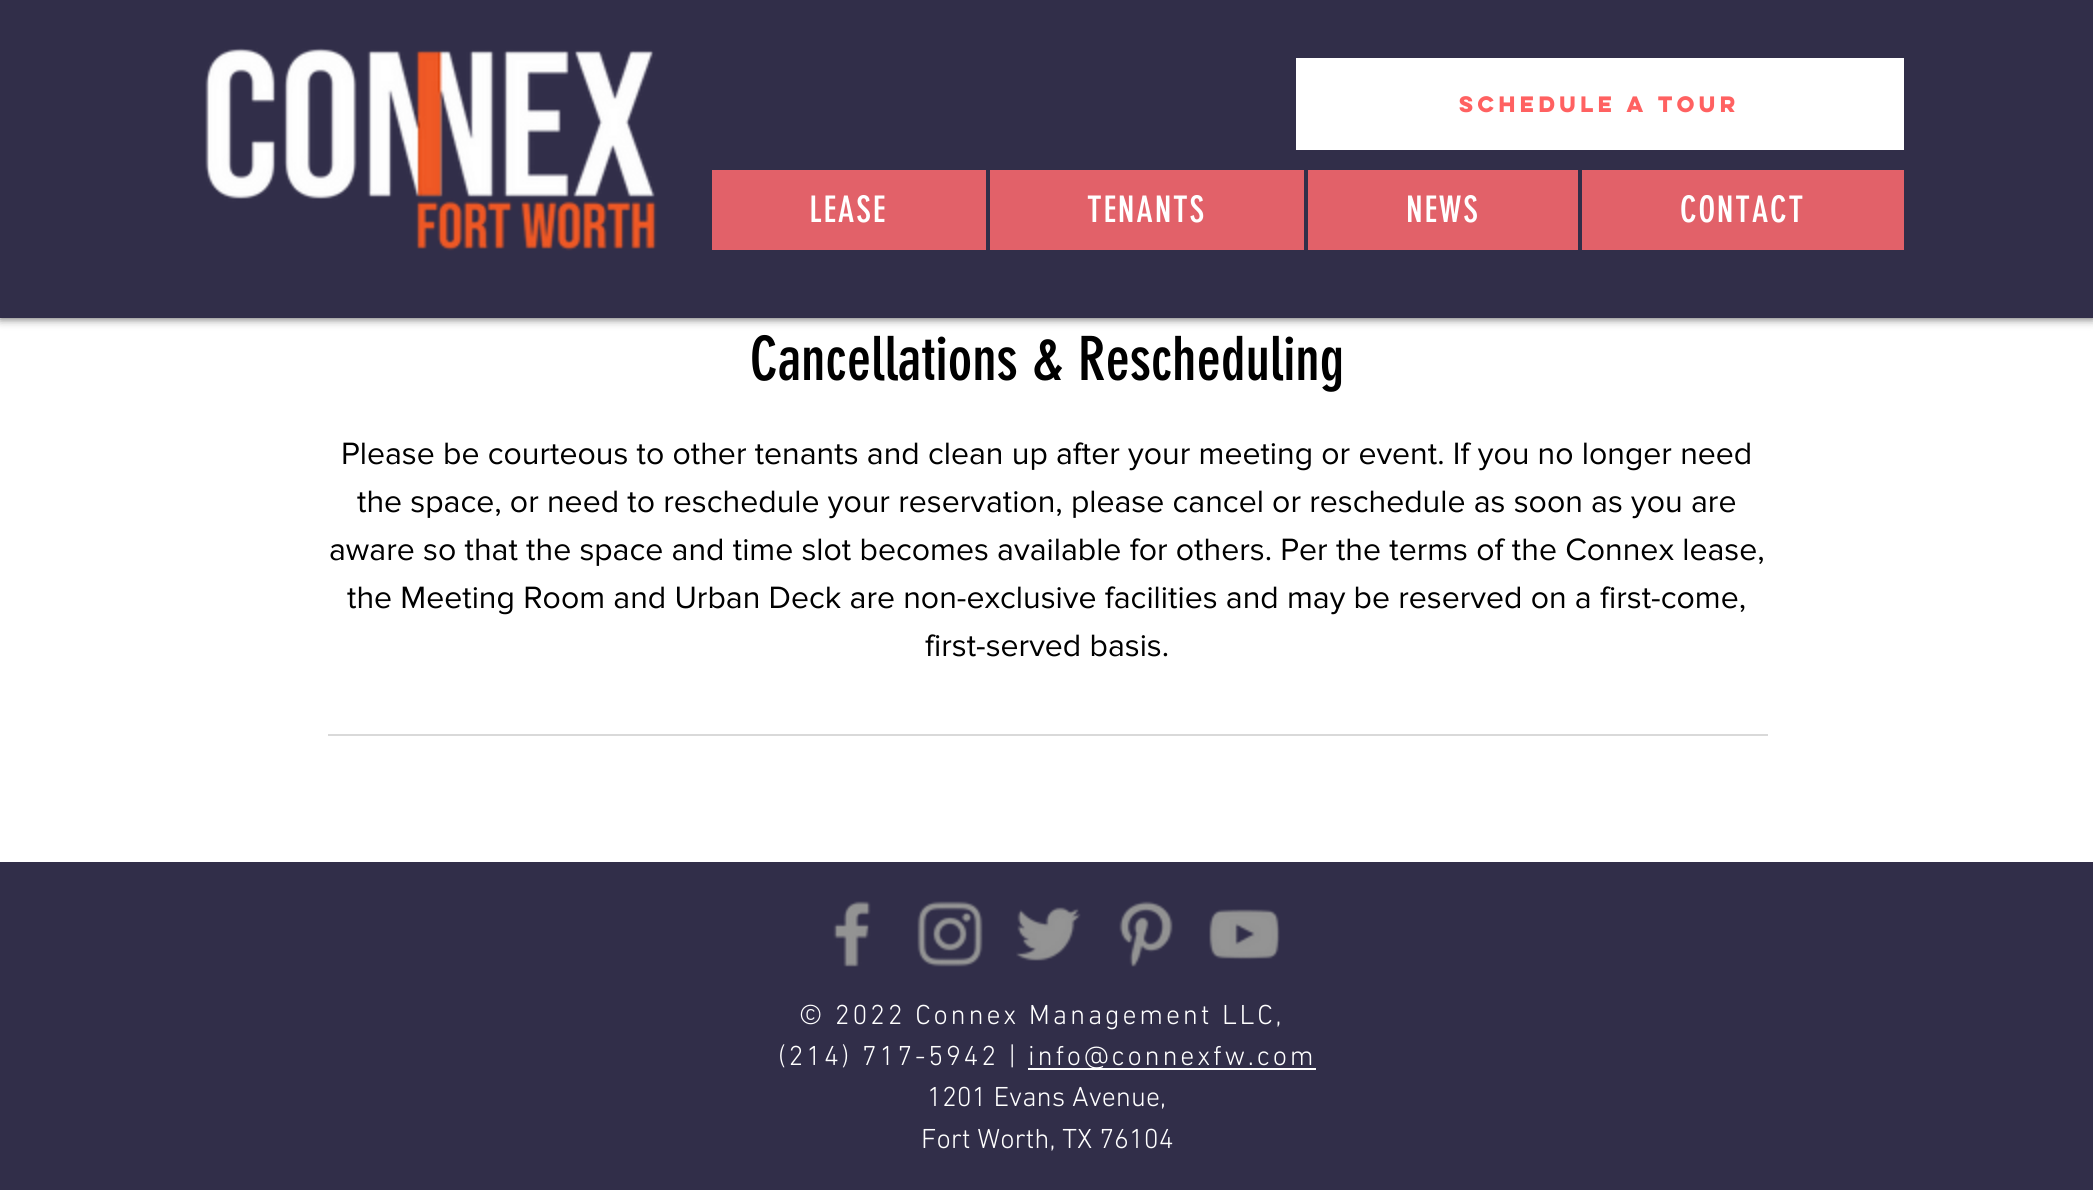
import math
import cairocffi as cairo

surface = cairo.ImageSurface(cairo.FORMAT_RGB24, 2093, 1197)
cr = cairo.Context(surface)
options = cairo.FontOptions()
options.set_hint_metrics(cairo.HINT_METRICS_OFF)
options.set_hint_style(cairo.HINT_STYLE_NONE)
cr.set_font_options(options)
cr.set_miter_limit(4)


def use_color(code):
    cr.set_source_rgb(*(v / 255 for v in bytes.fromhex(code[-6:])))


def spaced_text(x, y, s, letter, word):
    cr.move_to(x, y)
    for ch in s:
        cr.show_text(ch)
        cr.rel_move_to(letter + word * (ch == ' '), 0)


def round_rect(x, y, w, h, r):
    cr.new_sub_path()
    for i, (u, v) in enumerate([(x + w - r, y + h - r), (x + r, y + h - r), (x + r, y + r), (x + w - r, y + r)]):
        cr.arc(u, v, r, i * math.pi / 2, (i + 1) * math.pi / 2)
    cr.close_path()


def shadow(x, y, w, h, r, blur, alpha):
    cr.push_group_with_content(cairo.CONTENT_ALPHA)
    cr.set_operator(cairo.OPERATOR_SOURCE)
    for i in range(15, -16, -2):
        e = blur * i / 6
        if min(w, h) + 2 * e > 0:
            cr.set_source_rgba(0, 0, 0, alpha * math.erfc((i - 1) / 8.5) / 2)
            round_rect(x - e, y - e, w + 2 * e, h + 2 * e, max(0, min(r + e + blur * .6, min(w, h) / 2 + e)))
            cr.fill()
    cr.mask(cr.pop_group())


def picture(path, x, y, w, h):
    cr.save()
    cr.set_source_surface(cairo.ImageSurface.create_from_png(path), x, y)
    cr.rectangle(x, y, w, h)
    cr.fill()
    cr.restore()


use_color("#ffffff")
cr.paint()
use_color("#000000")
shadow(0, 0, 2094, 318, 0, 5, 0.7)
use_color("#312e49")
cr.rectangle(0, 0, 2093, 318)
cr.fill()
picture("img1.png", 205, 48, 452, 203)
use_color("#ffffff")
cr.rectangle(1296, 58, 608, 92)
cr.fill()
cr.select_font_face("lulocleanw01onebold", cairo.FONT_SLANT_NORMAL, cairo.FONT_WEIGHT_BOLD)
cr.set_font_size(20)
use_color("#ff6161")
cr.move_to(1459, 112)
cr.show_text("schedule a tour")
use_color("#e26169")
cr.rectangle(712, 170, 274, 80)
cr.fill()
cr.select_font_face("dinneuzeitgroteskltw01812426")
cr.set_font_size(36)
use_color("#ffffff")
spaced_text(809, 222, "LEASE", 1.75, 0)
use_color("#e26169")
cr.rectangle(990, 170, 314, 80)
cr.fill()
use_color("#ffffff")
spaced_text(1087, 222, "TENANTS", 1.75, 0)
use_color("#e26169")
cr.rectangle(1308, 170, 270, 80)
cr.fill()
use_color("#ffffff")
spaced_text(1406, 222, "NEWS", 1.75, 0)
use_color("#e26169")
cr.rectangle(1582, 170, 322, 80)
cr.fill()
use_color("#ffffff")
spaced_text(1680, 222, "CONTACT", 1.75, 0)
cr.set_font_size(60)
use_color("#000000")
cr.move_to(750, 380)
cr.show_text("Cancellations & Rescheduling")
cr.select_font_face("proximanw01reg")
cr.set_font_size(32)
cr.move_to(341, 464)
cr.show_text("Please be courteous to other tenants and clean up after your meeting or event. If you no longer need")
cr.move_to(357, 512)
cr.show_text("the space, or need to reschedule your reservation, please cancel or reschedule as soon as you are")
cr.move_to(329, 560)
cr.show_text("aware so that the space and time slot becomes available for others. Per the terms of the Connex lease,")
cr.move_to(347, 608)
cr.show_text("the Meeting Room and Urban Deck are non-exclusive facilities and may be reserved on a first-come,")
cr.move_to(925, 656)
cr.show_text("first-served basis.")
use_color("#d9d9d9")
cr.rectangle(328, 734, 1440, 2)
cr.fill()
use_color("#312e49")
cr.rectangle(0, 862, 2093, 328)
cr.fill()
picture("img2.png", 833, 901, 38, 66)
picture("img3.png", 917, 901, 66, 66)
picture("img4.png", 1016, 907, 65, 54)
picture("img5.png", 1119, 901, 54, 66)
picture("img6.png", 1209, 909, 71, 51)
cr.select_font_face("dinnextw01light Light")
cr.set_font_size(28)
use_color("#ffffff")
spaced_text(799, 1024, "© 2022 Connex Management LLC,", 2.8, 0)
spaced_text(778, 1065, "(214) 717-5942 |", 2.8, 0)
cr.rectangle(1028, 1068, 288, 2)
cr.fill()
spaced_text(1028, 1065, "info@connexfw.com", 2.8, 0)
cr.move_to(927, 1106)
cr.show_text("1201 Evans Avenue,")
cr.move_to(921, 1148)
cr.show_text("Fort Worth, TX 76104")
surface.write_to_png("result.png")
